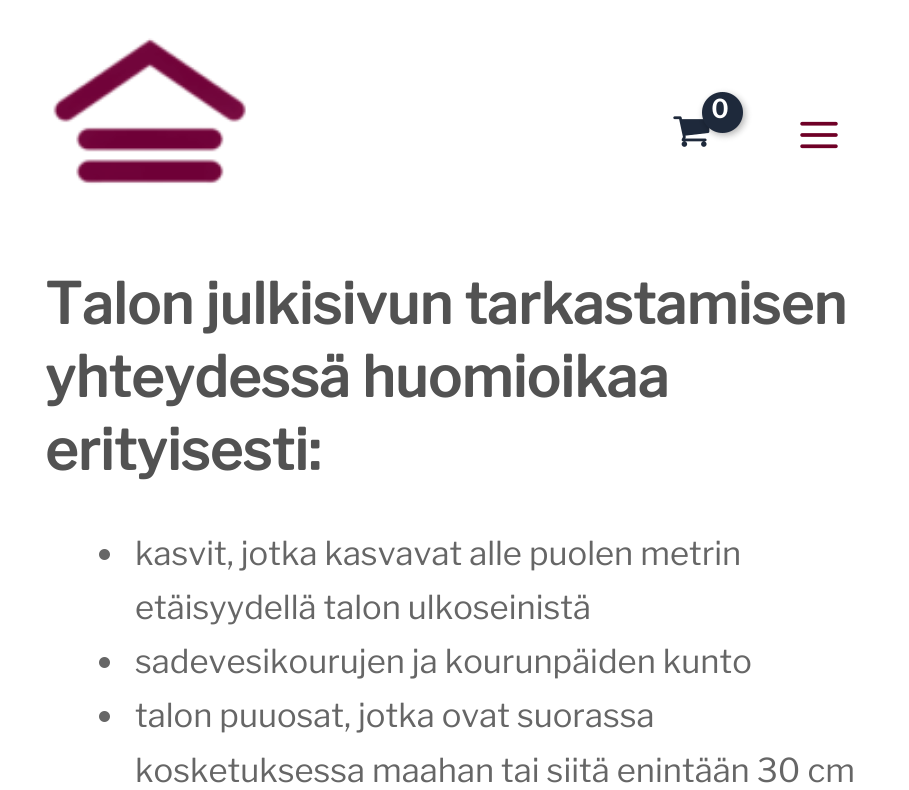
import math
import cairocffi as cairo

surface = cairo.ImageSurface(cairo.FORMAT_RGB24, 909, 790)
cr = cairo.Context(surface)
options = cairo.FontOptions()
options.set_hint_metrics(cairo.HINT_METRICS_OFF)
options.set_hint_style(cairo.HINT_STYLE_NONE)
cr.set_font_options(options)
cr.set_miter_limit(4)


def use_color(code):
    cr.set_source_rgb(*(v / 255 for v in bytes.fromhex(code[-6:])))


def spaced_text(x, y, s, letter, word):
    cr.move_to(x, y)
    for ch in s:
        cr.show_text(ch)
        cr.rel_move_to(letter + word * (ch == ' '), 0)


def round_rect(x, y, w, h, r):
    cr.new_sub_path()
    for i, (u, v) in enumerate([(x + w - r, y + h - r), (x + r, y + h - r), (x + r, y + r), (x + w - r, y + r)]):
        cr.arc(u, v, r, i * math.pi / 2, (i + 1) * math.pi / 2)
    cr.close_path()


def shadow(x, y, w, h, r, blur, alpha):
    cr.push_group_with_content(cairo.CONTENT_ALPHA)
    cr.set_operator(cairo.OPERATOR_SOURCE)
    for i in range(15, -16, -2):
        e = blur * i / 6
        if min(w, h) + 2 * e > 0:
            cr.set_source_rgba(0, 0, 0, alpha * math.erfc((i - 1) / 8.5) / 2)
            round_rect(x - e, y - e, w + 2 * e, h + 2 * e, max(0, min(r + e + blur * .6, min(w, h) / 2 + e)))
            cr.fill()
    cr.mask(cr.pop_group())


def picture(path, x, y, w, h):
    cr.save()
    cr.set_source_surface(cairo.ImageSurface.create_from_png(path), x, y)
    cr.rectangle(x, y, w, h)
    cr.fill()
    cr.restore()


use_color("#ffffff")
cr.paint()
picture("img1.png", 53, 38, 193, 147)
picture("img2.png", 673, 116, 37, 31)
use_color("#000000")
shadow(704, 95, 41, 40, 20, 3.5, 0.3)
use_color("#1e293b")
cr.arc(722.5, 112.5, 20.5, 0, 2 * math.pi)
cr.fill()
cr.select_font_face("Libre Franklin", cairo.FONT_SLANT_NORMAL, cairo.FONT_WEIGHT_BOLD)
cr.set_font_size(25)
use_color("#ffffff")
spaced_text(711, 118, "0", -1, 0)
picture("img3.png", 800, 121, 38, 28)
cr.set_font_size(56.25)
use_color("#525252")
cr.move_to(45, 324)
cr.show_text("Talon julkisivun tarkastamisen")
cr.move_to(45, 397)
cr.show_text("yhteydessä huomioikaa")
cr.move_to(45, 470)
cr.show_text("erityisesti:")
use_color("#666666")
cr.new_path()
cr.arc(104.5, 554.5, 5.5, 0, 2 * math.pi)
cr.fill()
cr.select_font_face("Libre Franklin")
cr.set_font_size(32.8)
cr.move_to(135, 565)
cr.show_text("kasvit, jotka kasvavat alle puolen metrin")
cr.move_to(135, 619)
cr.show_text("etäisyydellä talon ulkoseinistä")
cr.new_path()
cr.arc(104.5, 662.5, 5.5, 0, 2 * math.pi)
cr.fill()
cr.move_to(135, 673)
cr.show_text("sadevesikourujen ja kourunpäiden kunto")
cr.new_path()
cr.arc(104.5, 716.5, 5.5, 0, 2 * math.pi)
cr.fill()
cr.move_to(135, 727)
cr.show_text("talon puuosat, jotka ovat suorassa")
cr.move_to(135, 782)
cr.show_text("kosketuksessa maahan tai siitä enintään 30 cm")
surface.write_to_png("result.png")
